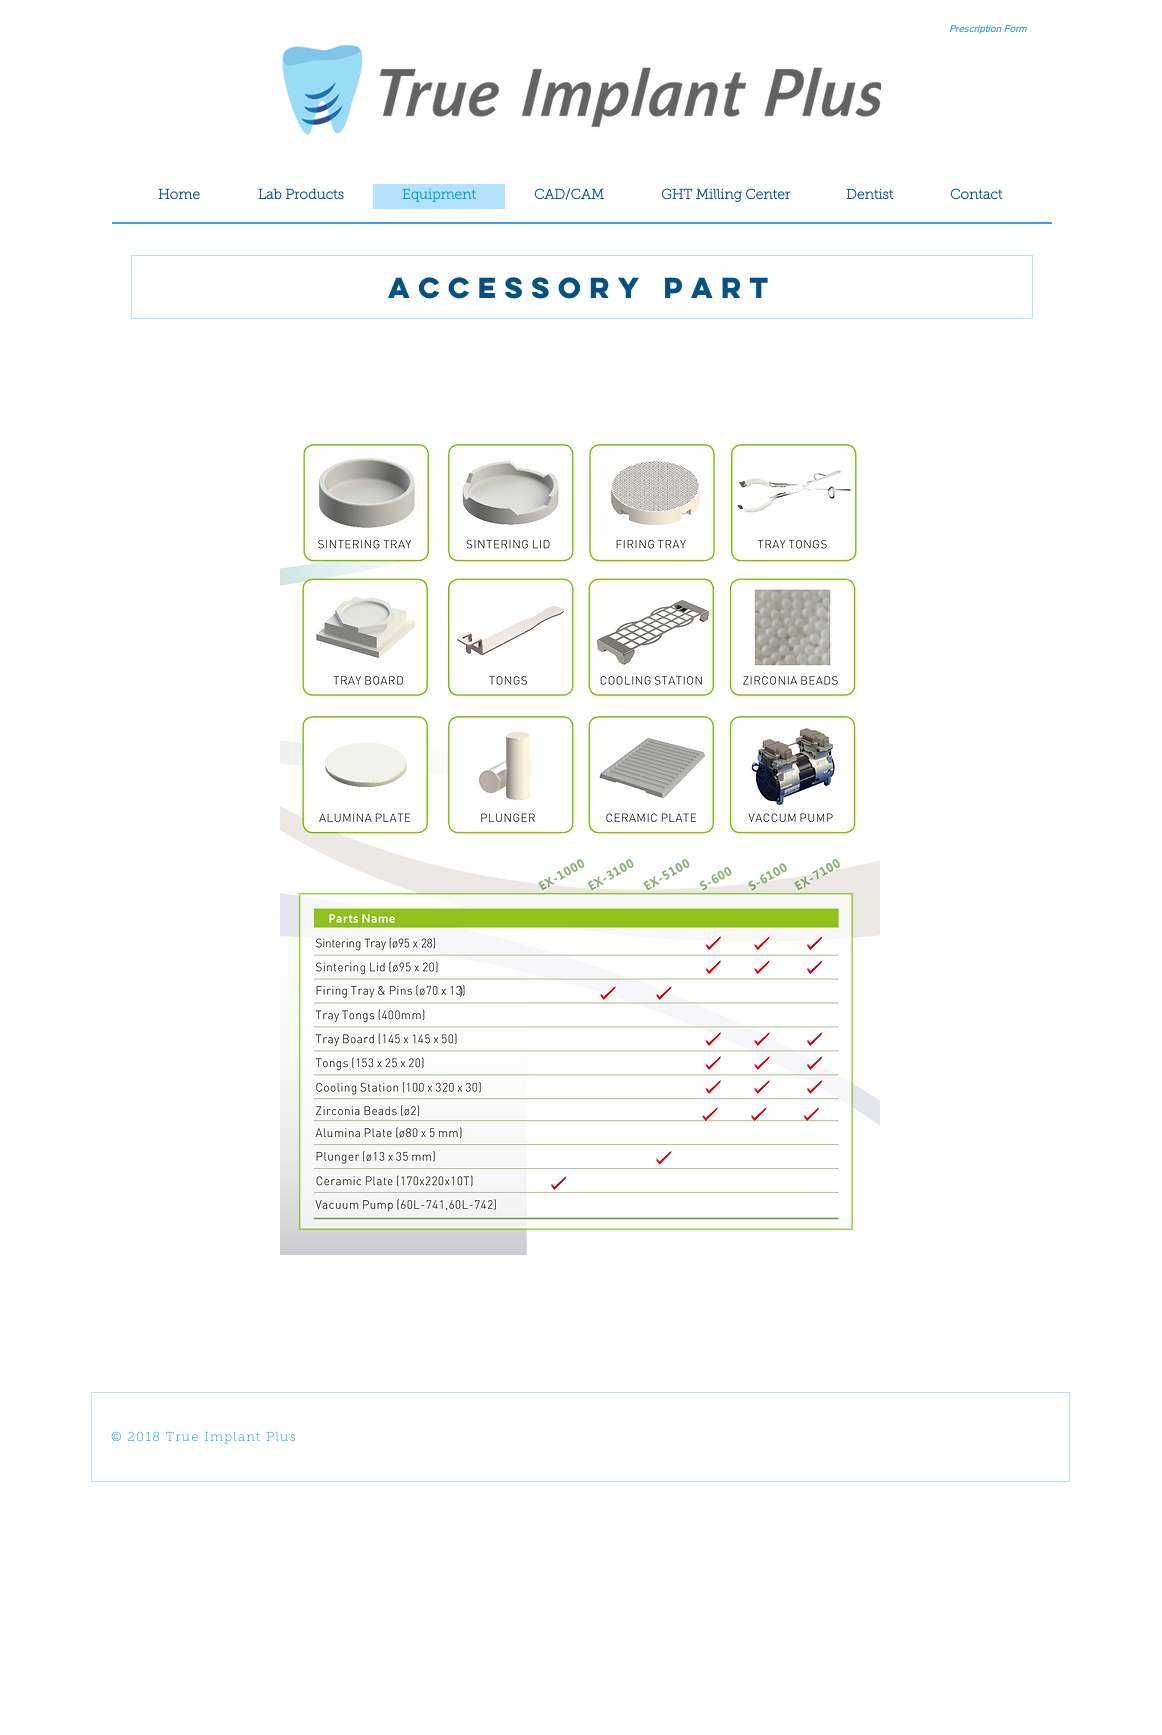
import math
import cairocffi as cairo

surface = cairo.ImageSurface(cairo.FORMAT_RGB24, 1162, 1735)
cr = cairo.Context(surface)
options = cairo.FontOptions()
options.set_hint_metrics(cairo.HINT_METRICS_OFF)
options.set_hint_style(cairo.HINT_STYLE_NONE)
cr.set_font_options(options)
cr.set_miter_limit(4)


def use_color(code):
    cr.set_source_rgb(*(v / 255 for v in bytes.fromhex(code[-6:])))


def spaced_text(x, y, s, letter, word):
    cr.move_to(x, y)
    for ch in s:
        cr.show_text(ch)
        cr.rel_move_to(letter + word * (ch == ' '), 0)


def picture(path, x, y, w, h):
    cr.save()
    cr.set_source_surface(cairo.ImageSurface.create_from_png(path), x, y)
    cr.rectangle(x, y, w, h)
    cr.fill()
    cr.restore()


use_color("#ffffff")
cr.paint()
cr.select_font_face("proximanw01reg", cairo.FONT_SLANT_ITALIC, cairo.FONT_WEIGHT_BOLD)
cr.set_font_size(10)
use_color("#3d9be9")
cr.move_to(949, 32)
cr.show_text("Prescription Form")
picture("img1.png", 282, 44, 599, 91)
cr.select_font_face("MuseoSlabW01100", cairo.FONT_SLANT_NORMAL, cairo.FONT_WEIGHT_BOLD)
cr.set_font_size(14)
use_color("#045184")
cr.move_to(158, 199)
cr.show_text("Home")
cr.move_to(258, 199)
cr.show_text("Lab Products")
use_color("#b5e3ff")
cr.rectangle(373, 184, 132, 25)
cr.fill()
use_color("#0098d9")
cr.move_to(402, 199)
cr.show_text("Equipment")
use_color("#045184")
cr.move_to(534, 199)
cr.show_text("CAD/CAM")
cr.move_to(661, 199)
cr.show_text("GHT Milling Center")
cr.move_to(846, 199)
cr.show_text("Dentist")
cr.move_to(950, 199)
cr.show_text("Contact")
use_color("#3d9be9")
cr.rectangle(112, 222, 940, 2)
cr.fill()
cr.rectangle(131.5, 255.5, 901, 63)
use_color("#b5e3ff")
cr.set_line_width(1)
cr.stroke()
cr.select_font_face("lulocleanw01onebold", cairo.FONT_SLANT_NORMAL, cairo.FONT_WEIGHT_BOLD)
cr.set_font_size(26)
use_color("#045184")
spaced_text(388, 298, "accessory Part", 2.6, 0)
picture("img2.png", 280, 444, 600, 811)
cr.rectangle(91.5, 1392.5, 978, 89)
use_color("#b5e3ff")
cr.stroke()
cr.select_font_face("MuseoSlabW01100 Thin")
cr.set_font_size(13)
use_color("#0098d9")
spaced_text(111, 1441, "© 2018 True Implant Plus", 1.3, 0)
surface.write_to_png("result.png")
